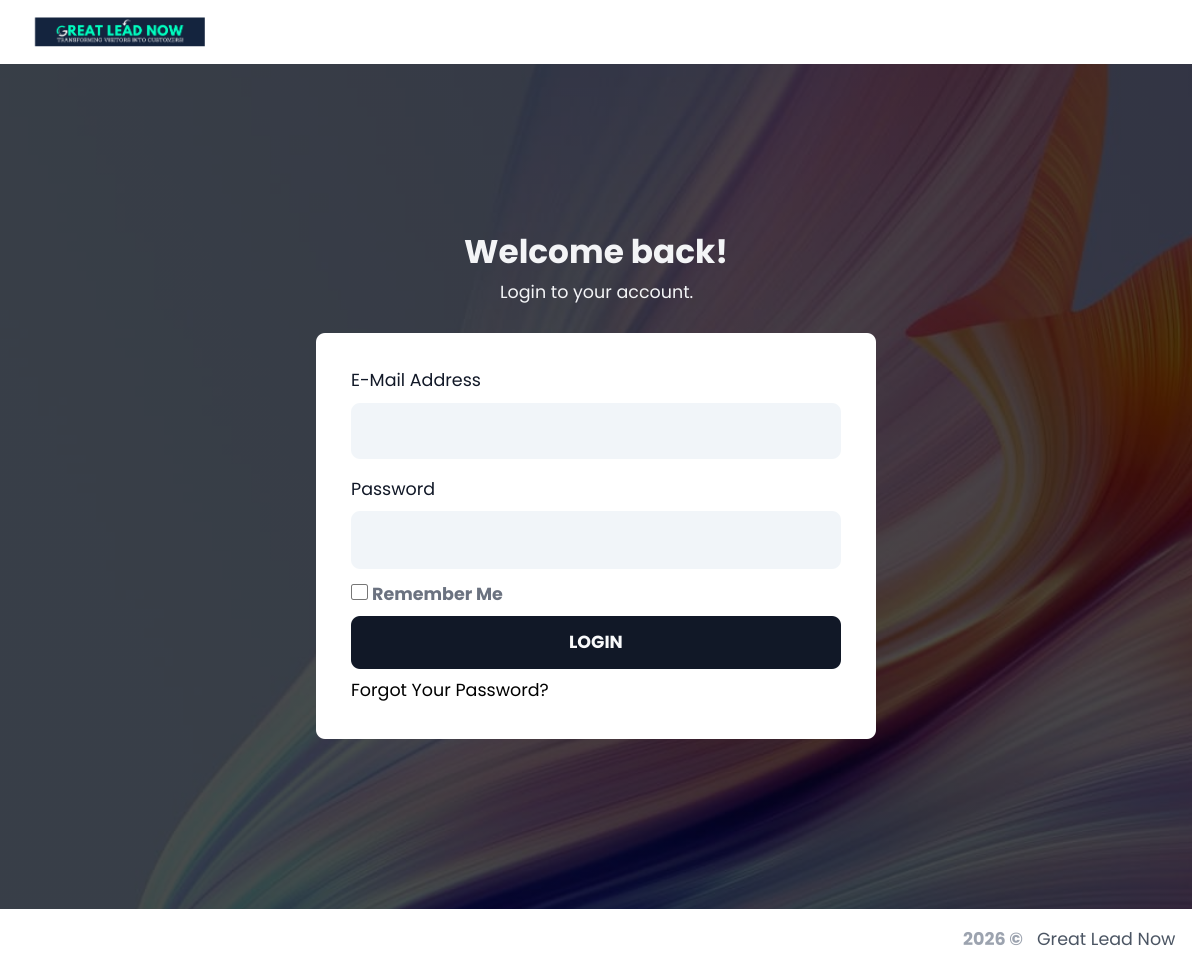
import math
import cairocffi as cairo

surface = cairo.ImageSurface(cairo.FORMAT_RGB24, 1192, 969)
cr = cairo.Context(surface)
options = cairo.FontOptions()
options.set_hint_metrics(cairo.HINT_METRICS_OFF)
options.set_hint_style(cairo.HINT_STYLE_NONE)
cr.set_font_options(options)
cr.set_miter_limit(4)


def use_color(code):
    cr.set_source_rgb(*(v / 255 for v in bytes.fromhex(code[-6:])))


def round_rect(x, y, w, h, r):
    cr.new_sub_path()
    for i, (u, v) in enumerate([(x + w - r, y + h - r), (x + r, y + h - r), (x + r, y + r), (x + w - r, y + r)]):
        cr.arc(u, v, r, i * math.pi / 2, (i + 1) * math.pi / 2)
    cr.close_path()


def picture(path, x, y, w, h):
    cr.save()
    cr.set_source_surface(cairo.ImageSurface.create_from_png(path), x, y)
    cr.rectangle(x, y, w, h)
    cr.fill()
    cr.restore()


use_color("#ffffff")
cr.paint()
picture("img1.png", 34, 17, 171, 30)
picture("img2.png", 0, 64, 1192, 845)
cr.select_font_face("Poppins", cairo.FONT_SLANT_NORMAL, cairo.FONT_WEIGHT_BOLD)
cr.set_font_size(32.75)
use_color("#f3f4f6")
cr.move_to(464, 263)
cr.show_text("Welcome back!")
cr.select_font_face("Poppins")
cr.set_font_size(17.5)
cr.move_to(500, 298)
cr.show_text("Login to your account.")
use_color("#ffffff")
round_rect(316, 333, 560, 406, 9)
cr.fill()
use_color("#111827")
cr.move_to(351, 386)
cr.show_text("E-Mail Address")
use_color("#f1f5f9")
round_rect(351, 403, 490, 56, 9)
cr.fill()
use_color("#111827")
cr.move_to(351, 495)
cr.show_text("Password")
use_color("#f1f5f9")
round_rect(351, 511, 490, 58, 9)
cr.fill()
round_rect(351.5, 584.5, 16, 15, 2)
use_color("#767676")
cr.set_line_width(1)
cr.stroke()
cr.select_font_face("Poppins", cairo.FONT_SLANT_NORMAL, cairo.FONT_WEIGHT_BOLD)
use_color("#6b7280")
cr.move_to(372, 600)
cr.show_text("Remember Me")
use_color("#111827")
round_rect(351, 616, 490, 53, 9)
cr.fill()
use_color("#f9fafb")
cr.move_to(569, 648)
cr.show_text("LOGIN")
cr.select_font_face("Poppins")
use_color("#000000")
cr.move_to(351, 696)
cr.show_text("Forgot Your Password?")
cr.select_font_face("Poppins", cairo.FONT_SLANT_NORMAL, cairo.FONT_WEIGHT_BOLD)
use_color("#9ca3af")
cr.move_to(963, 945)
cr.show_text("2026 ©")
cr.select_font_face("Poppins")
use_color("#4b5563")
cr.move_to(1037, 945)
cr.show_text("Great Lead Now")
surface.write_to_png("result.png")
